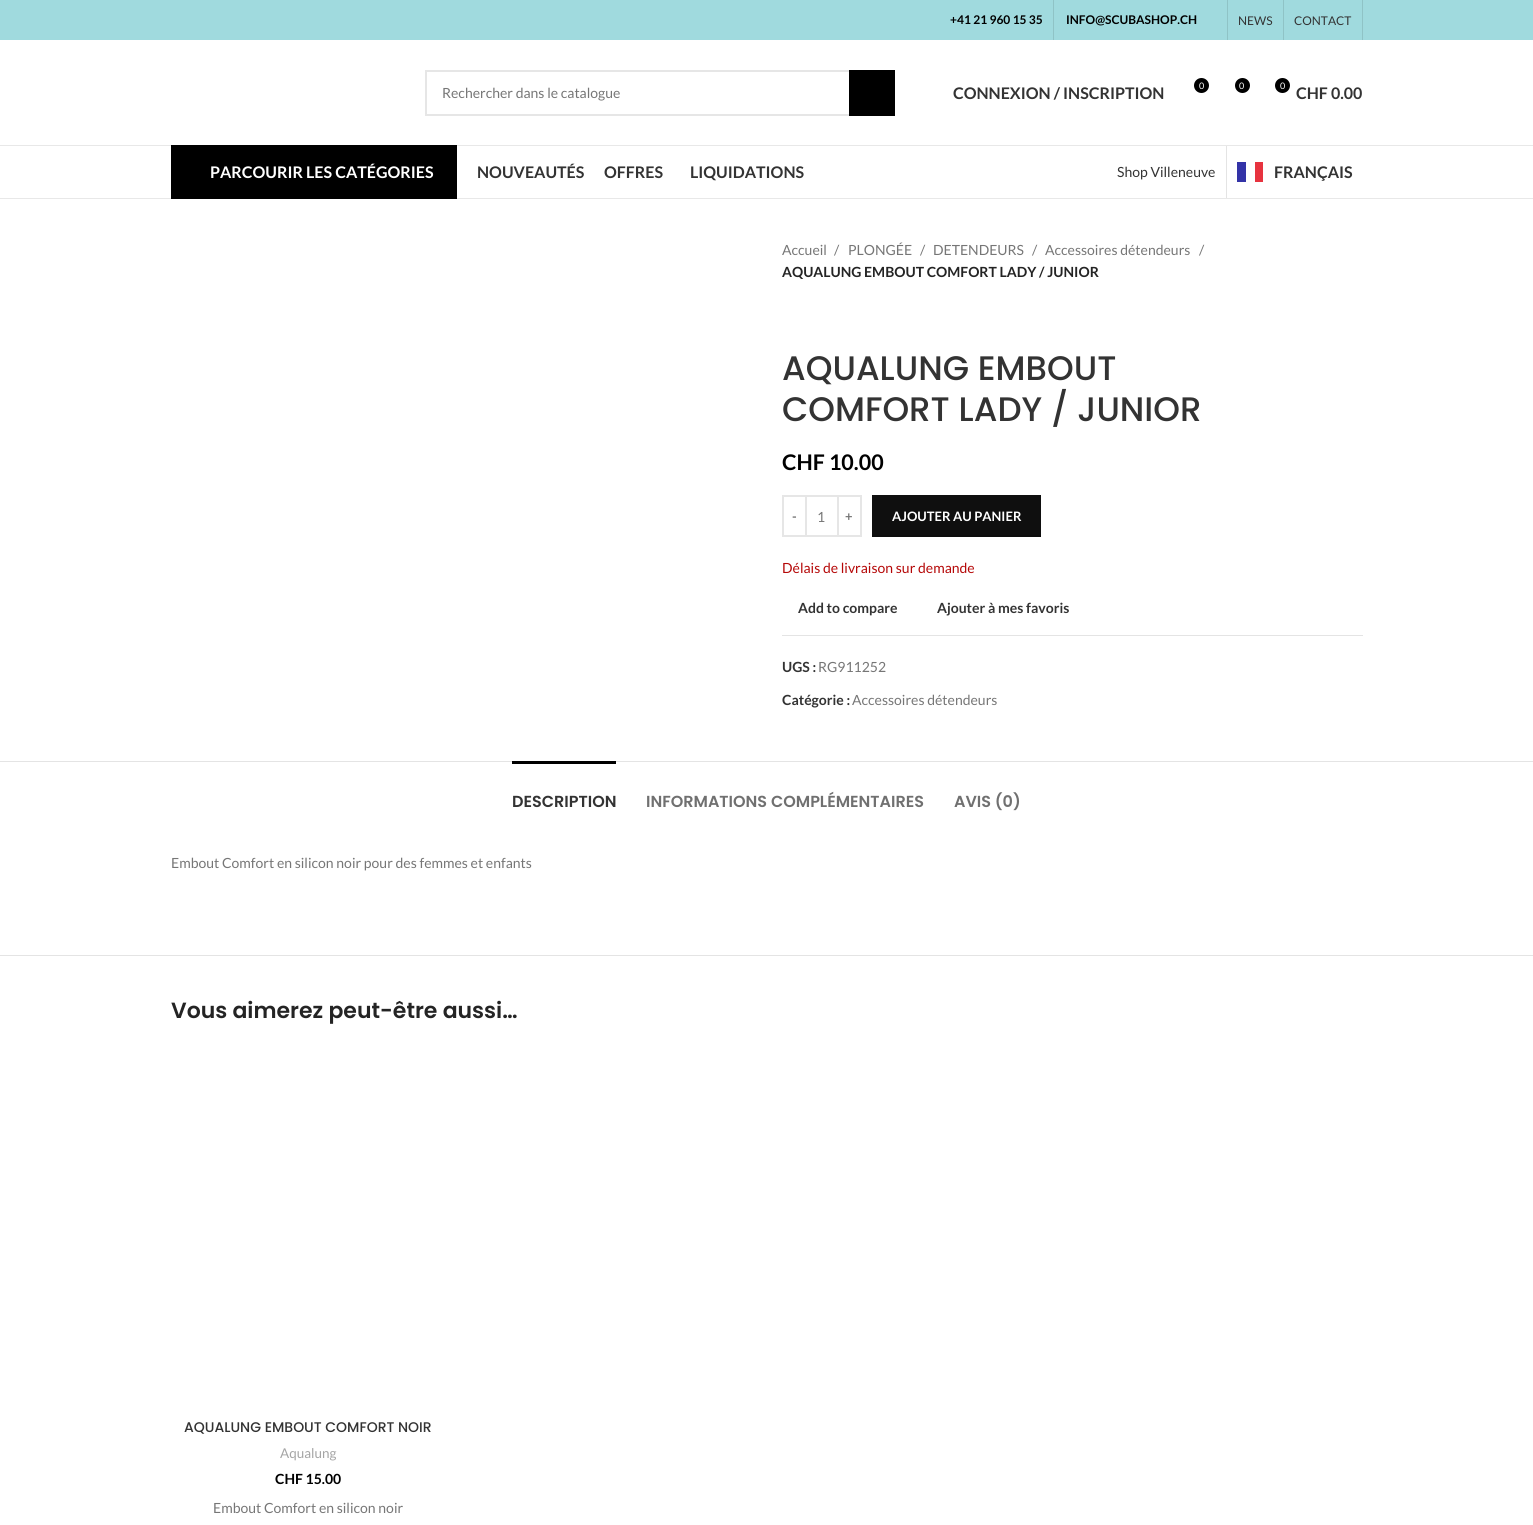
import math
import cairocffi as cairo

surface = cairo.ImageSurface(cairo.FORMAT_RGB24, 1533, 1525)
cr = cairo.Context(surface)
options = cairo.FontOptions()
options.set_hint_metrics(cairo.HINT_METRICS_OFF)
options.set_hint_style(cairo.HINT_STYLE_NONE)
cr.set_font_options(options)
cr.set_miter_limit(4)


def use_color(code):
    cr.set_source_rgb(*(v / 255 for v in bytes.fromhex(code[-6:])))


use_color("#ffffff")
cr.paint()
use_color("#a0dade")
cr.rectangle(0, 0, 1533, 40)
cr.fill()
cr.select_font_face("Lato", cairo.FONT_SLANT_NORMAL, cairo.FONT_WEIGHT_BOLD)
cr.set_font_size(12)
use_color("#000000")
cr.move_to(950, 24)
cr.show_text("+41 21 960 15 35")
use_color("#8fc3c6")
cr.rectangle(1053, 0, 1, 40)
cr.fill()
use_color("#000000")
cr.move_to(1066, 24)
cr.show_text("INFO@SCUBASHOP.CH")
use_color("#8fc3c6")
cr.rectangle(1227, 0, 1, 40)
cr.fill()
cr.select_font_face("Lato")
use_color("#333333")
cr.move_to(1238, 25)
cr.show_text("NEWS")
use_color("#8fc3c6")
cr.rectangle(1283, 0, 1, 40)
cr.fill()
use_color("#333333")
cr.move_to(1294, 25)
cr.show_text("CONTACT")
use_color("#8fc3c6")
cr.rectangle(1362, 0, 1, 40)
cr.fill()
use_color("#e8e8e8")
cr.rectangle(0, 145, 1533, 1)
cr.fill()
cr.rectangle(426, 71, 468, 44)
use_color("#e6e6e6")
cr.stroke()
cr.set_font_size(14)
use_color("#767676")
cr.move_to(442, 98)
cr.show_text("Rechercher dans le catalogue")
use_color("#000000")
cr.rectangle(849, 70, 46, 46)
cr.fill()
cr.select_font_face("Lato", cairo.FONT_SLANT_NORMAL, cairo.FONT_WEIGHT_BOLD)
cr.set_font_size(16)
use_color("#333333")
cr.move_to(953, 99)
cr.show_text("CONNEXION / INSCRIPTION")
use_color("#000000")
cr.new_path()
cr.arc(1201.5, 85.5, 7.5, 0, 2 * math.pi)
cr.fill()
cr.select_font_face("Lato")
cr.set_font_size(9)
use_color("#ffffff")
cr.move_to(1199, 89)
cr.show_text("0")
use_color("#000000")
cr.new_path()
cr.arc(1242.5, 85.5, 7.5, 0, 2 * math.pi)
cr.fill()
use_color("#ffffff")
cr.move_to(1239, 89)
cr.show_text("0")
use_color("#000000")
cr.new_path()
cr.arc(1282.5, 85.5, 7.5, 0, 2 * math.pi)
cr.fill()
use_color("#ffffff")
cr.move_to(1280, 89)
cr.show_text("0")
cr.select_font_face("Lato", cairo.FONT_SLANT_NORMAL, cairo.FONT_WEIGHT_BOLD)
cr.set_font_size(16)
use_color("#333333")
cr.move_to(1296, 99)
cr.show_text("CHF 0.00")
use_color("#e8e8e8")
cr.rectangle(0, 198, 1533, 1)
cr.fill()
use_color("#000000")
cr.rectangle(171, 145, 286, 54)
cr.fill()
use_color("#ffffff")
cr.move_to(210, 178)
cr.show_text("PARCOURIR LES CATÉGORIES")
use_color("#333333")
cr.move_to(477, 178)
cr.show_text("NOUVEAUTÉS")
cr.move_to(604, 178)
cr.show_text("OFFRES")
cr.move_to(690, 178)
cr.show_text("LIQUIDATIONS")
cr.select_font_face("Lato")
cr.set_font_size(14)
cr.move_to(1117, 177)
cr.show_text("Shop Villeneuve")
use_color("#e4e4e4")
cr.rectangle(1226, 146, 1, 52)
cr.fill()
use_color("#3333a7")
cr.rectangle(1237, 162, 9, 20)
cr.fill()
use_color("#e7333f")
cr.rectangle(1255, 162, 8, 20)
cr.fill()
cr.select_font_face("Lato", cairo.FONT_SLANT_NORMAL, cairo.FONT_WEIGHT_BOLD)
cr.set_font_size(16)
use_color("#333333")
cr.move_to(1274, 178)
cr.show_text("FRANÇAIS")
cr.select_font_face("Lato")
cr.set_font_size(14)
use_color("#767676")
cr.move_to(782, 255)
cr.show_text("Accueil")
cr.move_to(834, 255)
cr.show_text("/")
cr.move_to(848, 255)
cr.show_text("PLONGÉE")
cr.move_to(920, 255)
cr.show_text("/")
cr.move_to(933, 255)
cr.show_text("DETENDEURS")
cr.move_to(1032, 255)
cr.show_text("/")
cr.move_to(1045, 255)
cr.show_text("Accessoires détendeurs")
cr.move_to(1199, 255)
cr.show_text("/")
cr.select_font_face("Lato", cairo.FONT_SLANT_NORMAL, cairo.FONT_WEIGHT_BOLD)
use_color("#242424")
cr.move_to(782, 277)
cr.show_text("AQUALUNG EMBOUT COMFORT LADY / JUNIOR")
cr.select_font_face("Poppins Medium")
cr.set_font_size(34)
use_color("#333333")
cr.move_to(782, 380)
cr.show_text("AQUALUNG EMBOUT")
cr.move_to(782, 421)
cr.show_text("COMFORT LADY / JUNIOR")
cr.select_font_face("Lato", cairo.FONT_SLANT_NORMAL, cairo.FONT_WEIGHT_BOLD)
cr.set_font_size(21.5)
use_color("#000000")
cr.move_to(782, 470)
cr.show_text("CHF 10.00")
cr.rectangle(783, 496, 23, 40)
use_color("#e6e6e6")
cr.stroke()
cr.set_font_size(13)
use_color("#767676")
cr.move_to(792, 521)
cr.show_text("-")
use_color("#e6e6e6")
cr.rectangle(807, 495, 30, 2)
cr.fill()
cr.rectangle(807, 535, 30, 2)
cr.fill()
cr.select_font_face("Lato")
cr.set_font_size(14)
use_color("#767676")
cr.move_to(817, 522)
cr.show_text("1")
cr.rectangle(838, 496, 23, 40)
use_color("#e6e6e6")
cr.stroke()
cr.select_font_face("Lato", cairo.FONT_SLANT_NORMAL, cairo.FONT_WEIGHT_BOLD)
cr.set_font_size(13)
use_color("#767676")
cr.move_to(845, 521)
cr.show_text("+")
use_color("#0f0f0f")
cr.rectangle(872, 495, 169, 40)
cr.fill()
use_color("#0d0d0d")
cr.rectangle(872, 535, 169, 2)
cr.fill()
use_color("#ffffff")
cr.move_to(892, 521)
cr.show_text("AJOUTER AU PANIER")
cr.select_font_face("Lato")
cr.set_font_size(14)
use_color("#b50808")
cr.move_to(782, 573)
cr.show_text("Délais de livraison sur demande")
cr.select_font_face("Lato", cairo.FONT_SLANT_NORMAL, cairo.FONT_WEIGHT_BOLD)
use_color("#333333")
cr.move_to(798, 613)
cr.show_text("Add to compare")
cr.move_to(937, 613)
cr.show_text("Ajouter à mes favoris")
use_color("#e4e4e4")
cr.rectangle(782, 635, 581, 1)
cr.fill()
use_color("#333333")
cr.move_to(782, 672)
cr.show_text("UGS :")
cr.select_font_face("Lato")
use_color("#767676")
cr.move_to(818, 672)
cr.show_text("RG911252")
cr.select_font_face("Lato", cairo.FONT_SLANT_NORMAL, cairo.FONT_WEIGHT_BOLD)
use_color("#333333")
cr.move_to(782, 705)
cr.show_text("Catégorie :")
cr.select_font_face("Lato")
use_color("#767676")
cr.move_to(852, 705)
cr.show_text("Accessoires détendeurs")
use_color("#e4e4e4")
cr.rectangle(0, 761, 1533, 1)
cr.fill()
cr.rectangle(0, 955, 1533, 1)
cr.fill()
use_color("#000000")
cr.rectangle(512, 761, 104, 3)
cr.fill()
cr.select_font_face("Poppins SemiBold")
cr.set_font_size(16)
use_color("#333333")
cr.move_to(512, 807)
cr.show_text("DESCRIPTION")
use_color("#707070")
cr.move_to(646, 807)
cr.show_text("INFORMATIONS COMPLÉMENTAIRES")
cr.move_to(954, 807)
cr.show_text("AVIS (0)")
cr.select_font_face("Lato")
cr.set_font_size(14)
use_color("#767676")
cr.move_to(171, 868)
cr.show_text("Embout Comfort en silicon noir pour des femmes et enfants")
cr.select_font_face("Poppins SemiBold")
cr.set_font_size(22)
use_color("#242424")
cr.move_to(171, 1018)
cr.show_text("Vous aimerez peut-être aussi…")
cr.select_font_face("Poppins Medium")
cr.set_font_size(14)
use_color("#333333")
cr.move_to(184, 1432)
cr.show_text("AQUALUNG EMBOUT COMFORT NOIR")
cr.select_font_face("Lato")
cr.set_font_size(13.5)
use_color("#a5a5a5")
cr.move_to(280, 1458)
cr.show_text("Aqualung")
cr.select_font_face("Lato", cairo.FONT_SLANT_NORMAL, cairo.FONT_WEIGHT_BOLD)
cr.set_font_size(14)
use_color("#000000")
cr.move_to(275, 1484)
cr.show_text("CHF 15.00")
cr.select_font_face("Lato")
use_color("#767676")
cr.move_to(213, 1513)
cr.show_text("Embout Comfort en silicon noir")
surface.write_to_png("result.png")
